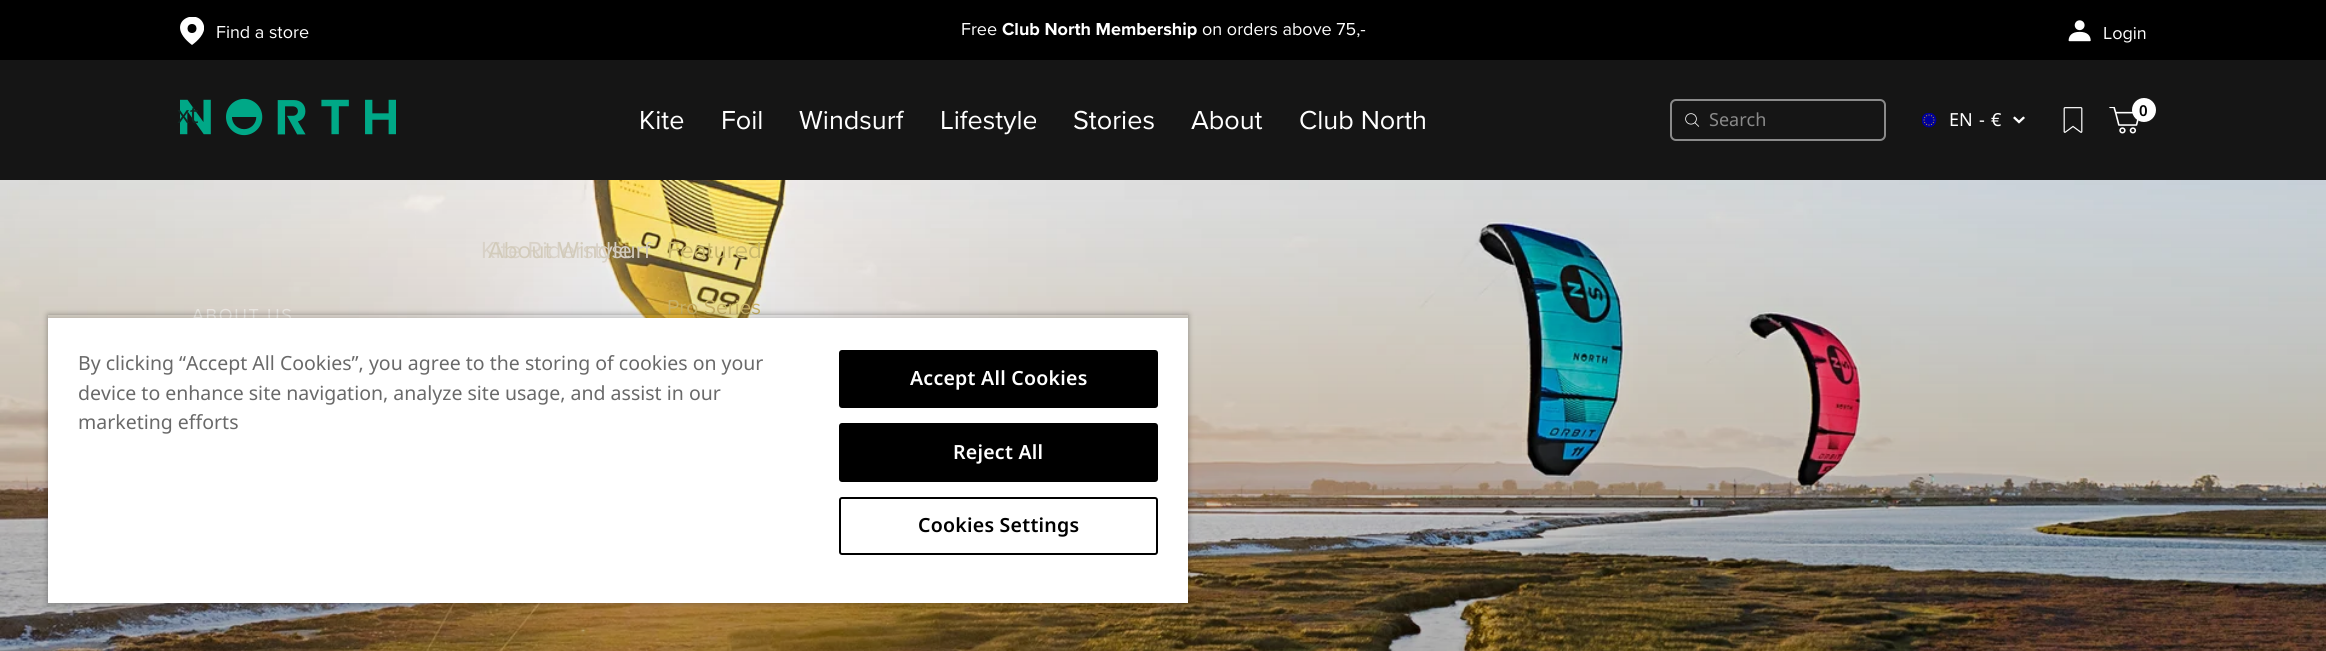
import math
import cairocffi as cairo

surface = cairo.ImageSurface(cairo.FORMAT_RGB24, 2326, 651)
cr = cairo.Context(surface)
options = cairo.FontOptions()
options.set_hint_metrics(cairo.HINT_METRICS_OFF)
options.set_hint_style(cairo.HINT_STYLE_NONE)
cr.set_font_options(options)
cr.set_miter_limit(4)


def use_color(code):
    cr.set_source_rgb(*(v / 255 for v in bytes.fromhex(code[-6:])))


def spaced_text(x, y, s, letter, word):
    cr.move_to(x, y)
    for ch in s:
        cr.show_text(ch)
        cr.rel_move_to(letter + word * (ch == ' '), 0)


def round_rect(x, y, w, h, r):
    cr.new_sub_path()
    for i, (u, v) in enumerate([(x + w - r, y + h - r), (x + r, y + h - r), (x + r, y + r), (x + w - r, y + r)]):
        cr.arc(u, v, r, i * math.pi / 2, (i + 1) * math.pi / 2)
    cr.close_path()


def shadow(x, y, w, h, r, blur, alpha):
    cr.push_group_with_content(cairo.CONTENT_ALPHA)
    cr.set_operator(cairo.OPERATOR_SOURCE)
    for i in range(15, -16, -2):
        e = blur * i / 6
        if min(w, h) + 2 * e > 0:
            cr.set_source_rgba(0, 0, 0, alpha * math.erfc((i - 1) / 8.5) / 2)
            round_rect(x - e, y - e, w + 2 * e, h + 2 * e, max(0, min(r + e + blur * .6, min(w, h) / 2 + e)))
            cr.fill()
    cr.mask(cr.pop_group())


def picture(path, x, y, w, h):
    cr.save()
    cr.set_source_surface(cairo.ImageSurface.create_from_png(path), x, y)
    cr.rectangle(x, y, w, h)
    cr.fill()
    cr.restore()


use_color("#ffffff")
cr.paint()
use_color("#000000")
cr.rectangle(0, 0, 2326, 60)
cr.fill()
cr.save()
cr.rectangle(180, 17, 24, 28)
cr.clip()
use_color("#ffffff")
cr.set_fill_rule(cairo.FILL_RULE_EVEN_ODD)
cr.new_path()
cr.move_to(192, 45)
cr.curve_to(197.5, 41, 205.5, 33.5, 204, 26)
cr.curve_to(199.5, 5.5, 161, 21.5, 192, 45)
cr.close_path()
cr.move_to(192, 33)
cr.curve_to(198, 33, 198, 24, 192, 24)
cr.curve_to(186, 24, 186, 33, 192, 33)
cr.close_path()
cr.fill()
cr.restore()
cr.select_font_face("Proxima Nova")
cr.set_font_size(18)
use_color("#ffffff")
cr.move_to(216, 38)
cr.show_text("Find a store")
cr.move_to(961, 35)
cr.show_text("Free")
cr.select_font_face("Proxima Nova", cairo.FONT_SLANT_NORMAL, cairo.FONT_WEIGHT_BOLD)
cr.move_to(1002, 35)
cr.show_text("Club North Membership")
cr.select_font_face("Proxima Nova")
cr.move_to(1202, 35)
cr.show_text("on orders above 75,-")
picture("img1.png", 2068, 20, 23, 22)
cr.move_to(2103, 39)
cr.show_text("Login")
use_color("#151515")
cr.rectangle(0, 60, 2326, 120)
cr.fill()
picture("img2.png", 180, 98, 216, 38)
cr.select_font_face("Noto Sans")
cr.set_font_size(24)
use_color("#122723")
cr.move_to(177, 123)
cr.show_text("xt")
cr.select_font_face("Proxima Nova")
cr.set_font_size(27)
use_color("#ffffff")
cr.move_to(639, 129)
cr.show_text("Kite")
cr.move_to(721, 129)
cr.show_text("Foil")
cr.move_to(799, 129)
cr.show_text("Windsurf")
cr.move_to(940, 129)
cr.show_text("Lifestyle")
cr.move_to(1073, 129)
cr.show_text("Stories")
cr.move_to(1191, 129)
cr.show_text("About")
cr.move_to(1299, 129)
cr.show_text("Club North")
round_rect(1671, 100, 214, 40, 5)
use_color("#8a8a8a")
cr.stroke()
picture("img3.png", 1685, 113, 15, 14)
cr.select_font_face("Noto Sans")
cr.set_font_size(18)
cr.move_to(1709, 126)
cr.show_text("Search")
picture("img4.png", 1922, 113, 15, 15)
use_color("#ffffff")
cr.move_to(1949, 126)
cr.show_text("EN")
cr.move_to(1979, 126)
cr.show_text("-")
cr.move_to(1991, 126)
cr.show_text("€")
picture("img5.png", 2013, 116, 12, 8)
picture("img6.png", 2063, 107, 20, 26)
picture("img7.png", 2109, 107, 30, 27)
cr.arc(2144, 110, 12, 0, 2 * math.pi)
cr.fill()
cr.select_font_face("Noto Sans SemiBold")
cr.set_font_size(15)
use_color("#000000")
cr.move_to(2139, 116)
cr.show_text("0")
picture("img8.png", 0, 180, 2326, 471)
cr.select_font_face("Proxima Nova")
cr.set_font_size(24)
use_color("#d8d1c7")
cr.move_to(481, 258)
cr.show_text("Kite Riderstyle")
use_color("#d2cbba")
cr.move_to(488, 258)
cr.show_text("About Windsurf")
use_color("#cab86a")
cr.move_to(667, 258)
cr.show_text("Featured")
cr.set_font_size(21)
use_color("#c7b065")
cr.move_to(667, 314)
cr.show_text("Pro Series")
cr.set_font_size(18)
use_color("#ebe8e3")
spaced_text(192, 321, "ABOUT US", 1.75, 0)
cr.save()
cr.set_fill_rule(cairo.FILL_RULE_EVEN_ODD)
cr.new_path()
cr.move_to(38, 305)
cr.line_to(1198, 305)
cr.line_to(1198, 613)
cr.line_to(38, 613)
cr.close_path()
cr.move_to(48, 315)
cr.line_to(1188, 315)
cr.line_to(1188, 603)
cr.line_to(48, 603)
cr.close_path()
cr.clip()
use_color("#000000")
shadow(48, 315, 1140, 288, 0, 3, 0.35)
cr.restore()
cr.save()
cr.rectangle(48, 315, 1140, 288)
cr.clip()
use_color("#000000")
shadow(48, 318, 1140, 285, 0, 3, 0.2)
cr.restore()
use_color("#ffffff")
cr.rectangle(48, 318, 1140, 285)
cr.fill()
cr.select_font_face("Noto Sans")
cr.set_font_size(19.5)
use_color("#696969")
cr.move_to(78, 370)
cr.show_text("By clicking “Accept All Cookies”, you agree to the storing of cookies on your")
cr.move_to(78, 400)
cr.show_text("device to enhance site navigation, analyze site usage, and assist in our")
cr.move_to(78, 429)
cr.show_text("marketing efforts")
use_color("#000000")
round_rect(840, 351, 317, 56, 2)
cr.fill_preserve()
cr.stroke()
cr.select_font_face("Noto Sans SemiBold")
use_color("#ffffff")
spaced_text(910, 385, "Accept All Cookies", 0.25, 0)
use_color("#000000")
round_rect(840, 424, 317, 57, 2)
cr.fill_preserve()
cr.stroke()
use_color("#ffffff")
spaced_text(953, 459, "Reject All", 0.25, 0)
round_rect(840, 498, 317, 56, 2)
use_color("#000000")
cr.stroke()
spaced_text(918, 532, "Cookies Settings", 0.25, 0)
surface.write_to_png("result.png")
